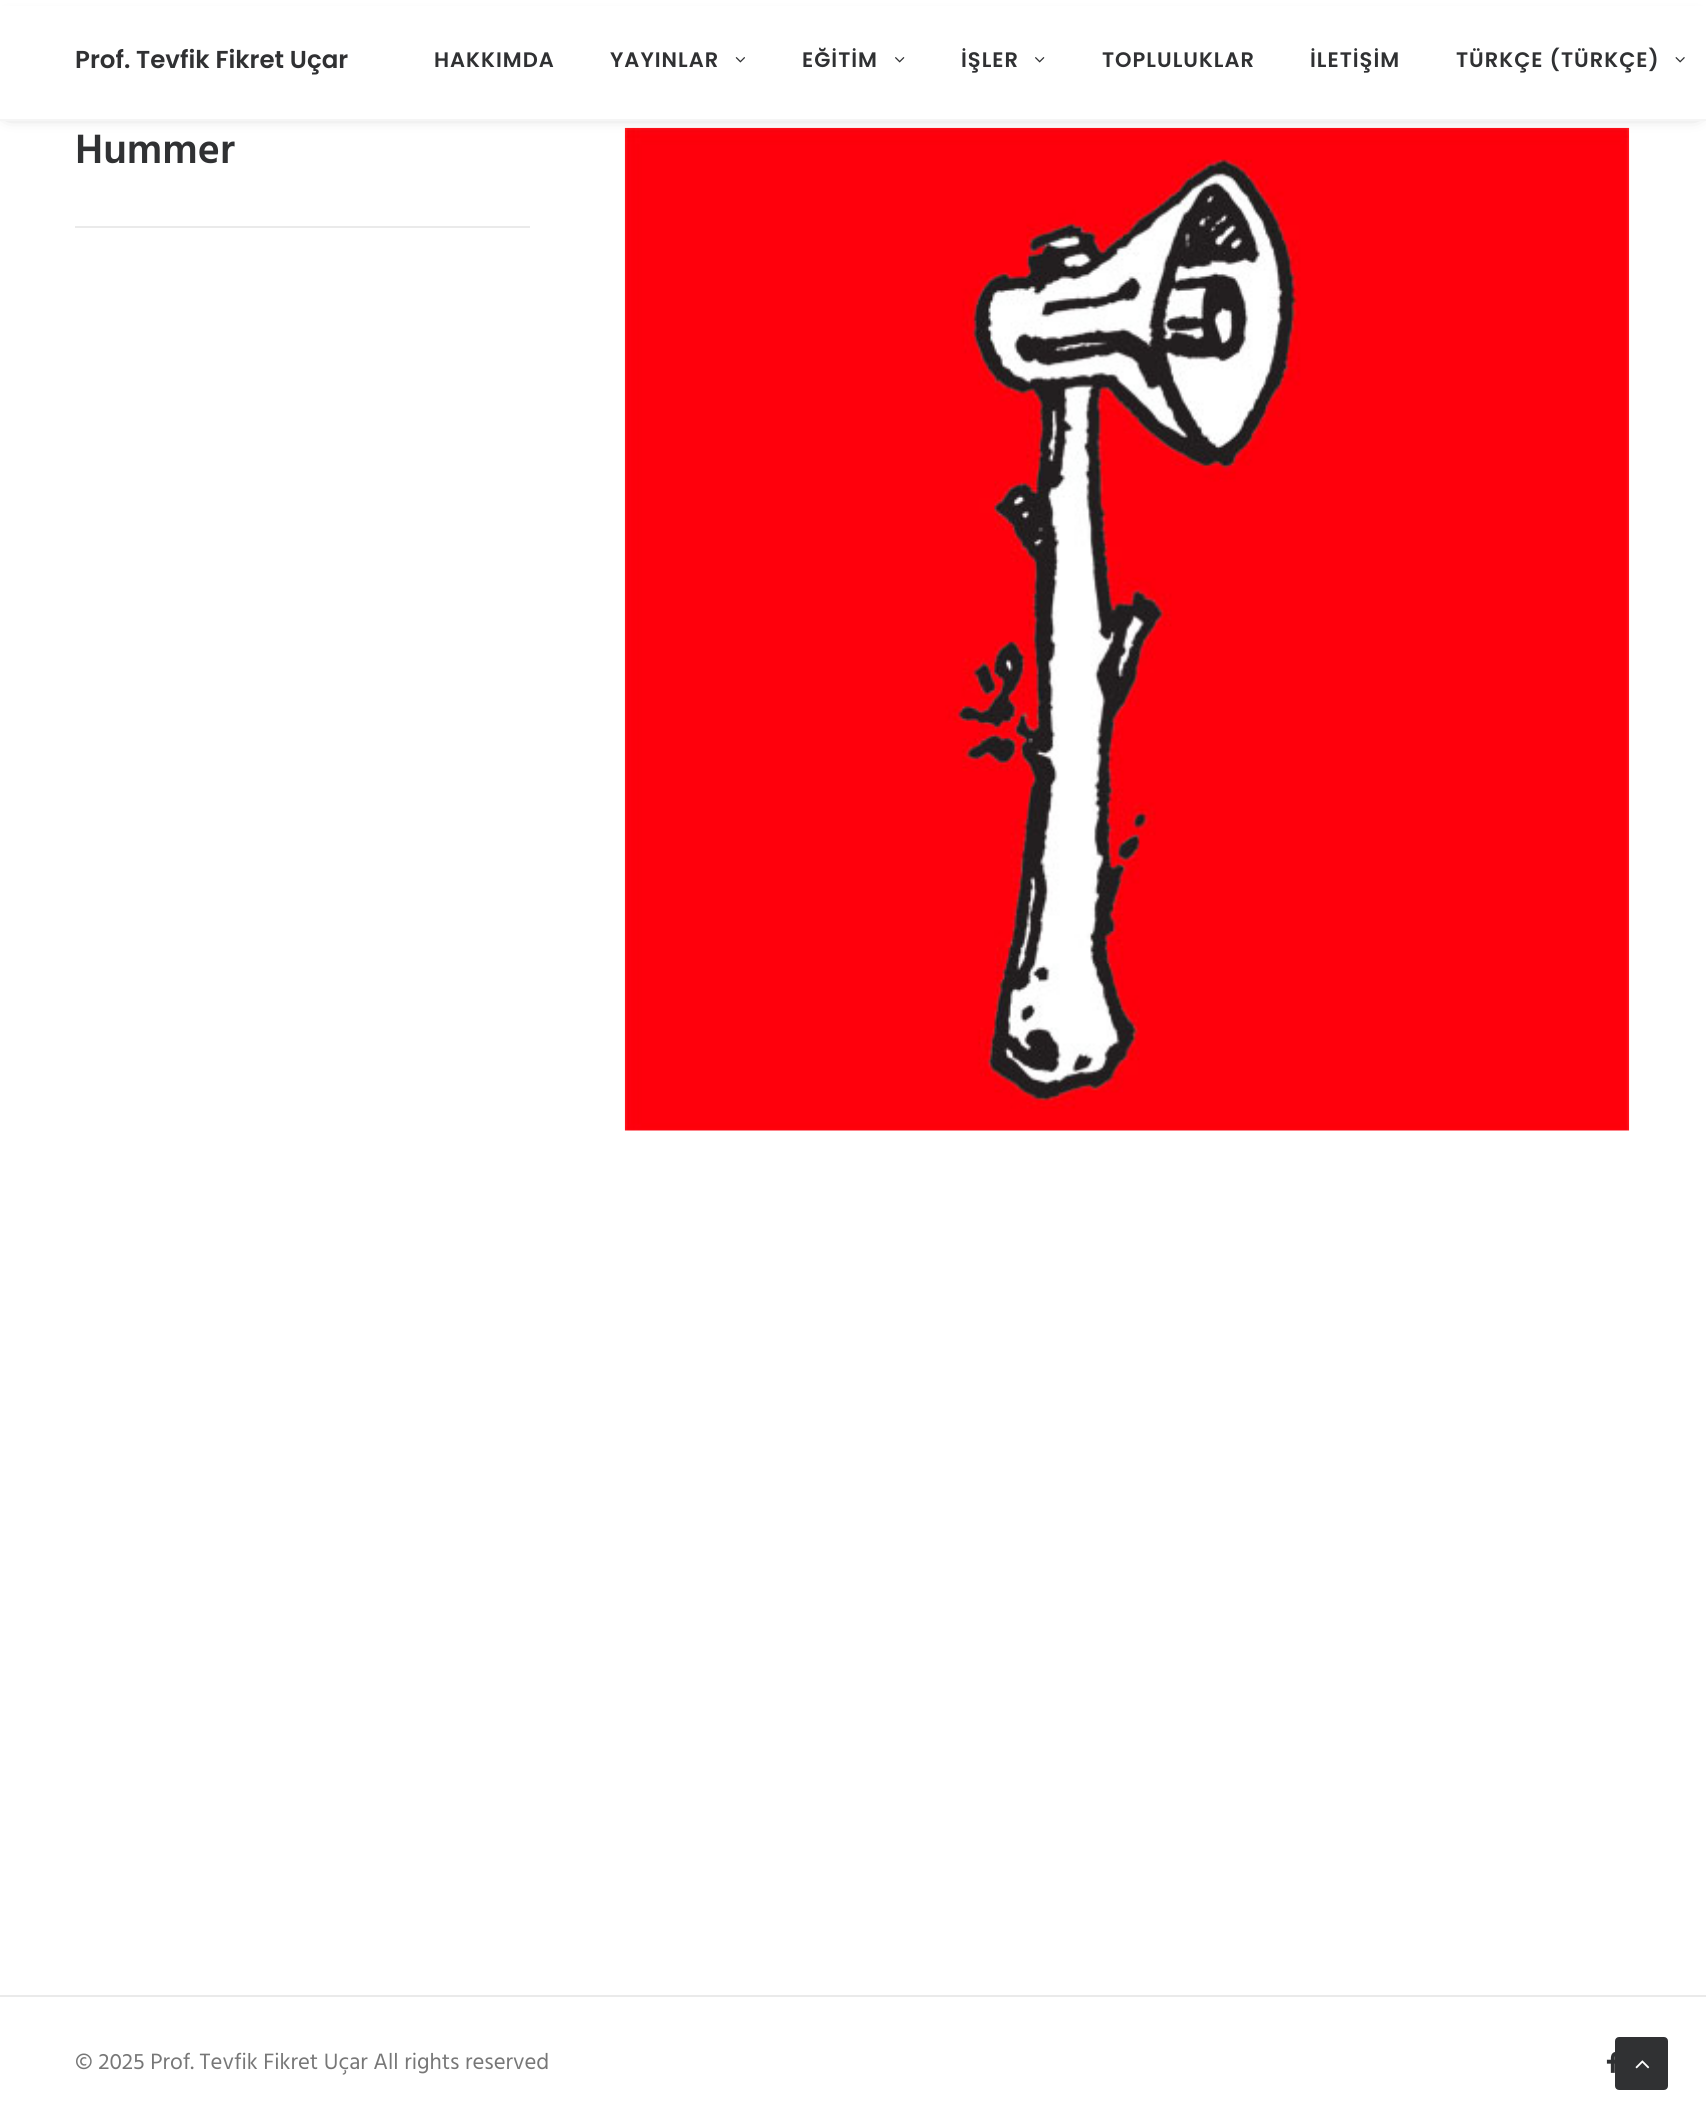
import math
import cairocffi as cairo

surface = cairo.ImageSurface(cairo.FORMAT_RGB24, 1706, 2128)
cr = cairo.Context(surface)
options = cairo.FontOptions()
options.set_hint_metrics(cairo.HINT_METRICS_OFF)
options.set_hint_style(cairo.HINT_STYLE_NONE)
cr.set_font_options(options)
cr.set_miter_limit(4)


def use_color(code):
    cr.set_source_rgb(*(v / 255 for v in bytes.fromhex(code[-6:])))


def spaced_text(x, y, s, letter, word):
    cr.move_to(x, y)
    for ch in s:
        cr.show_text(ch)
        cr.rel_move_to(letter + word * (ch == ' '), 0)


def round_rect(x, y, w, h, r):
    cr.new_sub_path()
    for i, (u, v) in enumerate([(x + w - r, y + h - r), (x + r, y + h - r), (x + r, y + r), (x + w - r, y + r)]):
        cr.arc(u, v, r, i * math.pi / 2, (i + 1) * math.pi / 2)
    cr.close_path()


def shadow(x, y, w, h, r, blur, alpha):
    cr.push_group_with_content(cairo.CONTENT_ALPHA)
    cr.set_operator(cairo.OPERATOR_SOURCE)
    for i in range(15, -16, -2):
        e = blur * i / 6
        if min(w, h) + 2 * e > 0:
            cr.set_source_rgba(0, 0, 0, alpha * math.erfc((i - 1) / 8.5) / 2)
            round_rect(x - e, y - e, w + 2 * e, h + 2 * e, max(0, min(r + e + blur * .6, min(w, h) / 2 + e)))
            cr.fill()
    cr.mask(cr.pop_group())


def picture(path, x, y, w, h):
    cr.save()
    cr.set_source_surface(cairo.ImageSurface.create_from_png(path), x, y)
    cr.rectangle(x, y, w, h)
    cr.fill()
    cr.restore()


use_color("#ffffff")
cr.paint()
picture("img4.png", 624, 127, 1006, 1004)
use_color("#000000")
shadow(9, 25, 1687, 85, 0, 9, 0.6)
use_color("#ffffff")
cr.rectangle(0, 6, 1706, 113)
cr.fill()
use_color("#f5f5f5")
cr.rectangle(0, 119, 1706, 2)
cr.fill()
cr.select_font_face("Poppins SemiBold")
cr.set_font_size(24.5)
use_color("#303133")
cr.move_to(75, 68)
cr.show_text("Prof. Tevfik Fikret Uçar")
cr.set_font_size(21)
spaced_text(434, 67, "HAKKIMDA", 1, 0)
spaced_text(610, 67, "YAYINLAR", 1, 0)
picture("img1.png", 735, 57, 10, 6)
spaced_text(802, 67, "EĞİTİM", 1, 0)
picture("img2.png", 895, 57, 10, 6)
spaced_text(961, 67, "İŞLER", 1, 0)
picture("img2.png", 1035, 57, 10, 6)
spaced_text(1102, 67, "TOPLULUKLAR", 1, 0)
spaced_text(1310, 67, "İLETİŞİM", 1, 0)
spaced_text(1456, 67, "TÜRKÇE (", 1, 0)
spaced_text(1561, 67, "TÜRKÇE)", 1, 0)
picture("img3.png", 1675, 57, 10, 6)
cr.select_font_face("Hind SemiBold")
cr.set_font_size(42)
cr.move_to(75, 163)
cr.show_text("Hummer")
use_color("#eaeaea")
cr.rectangle(75, 226, 455, 2)
cr.fill()
cr.rectangle(-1, 1996, 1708, 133)
cr.stroke()
cr.select_font_face("Hind")
cr.set_font_size(22.75)
use_color("#777777")
cr.move_to(75, 2069)
cr.show_text("© 2025 Prof. Tevfik Fikret Uçar All rights reserved")
picture("img5.png", 1606, 2052, 9, 21)
use_color("#303133")
round_rect(1616, 2038, 51, 51, 3)
cr.fill_preserve()
cr.stroke()
picture("img6.png", 1635, 2060, 15, 9)
surface.write_to_png("result.png")
